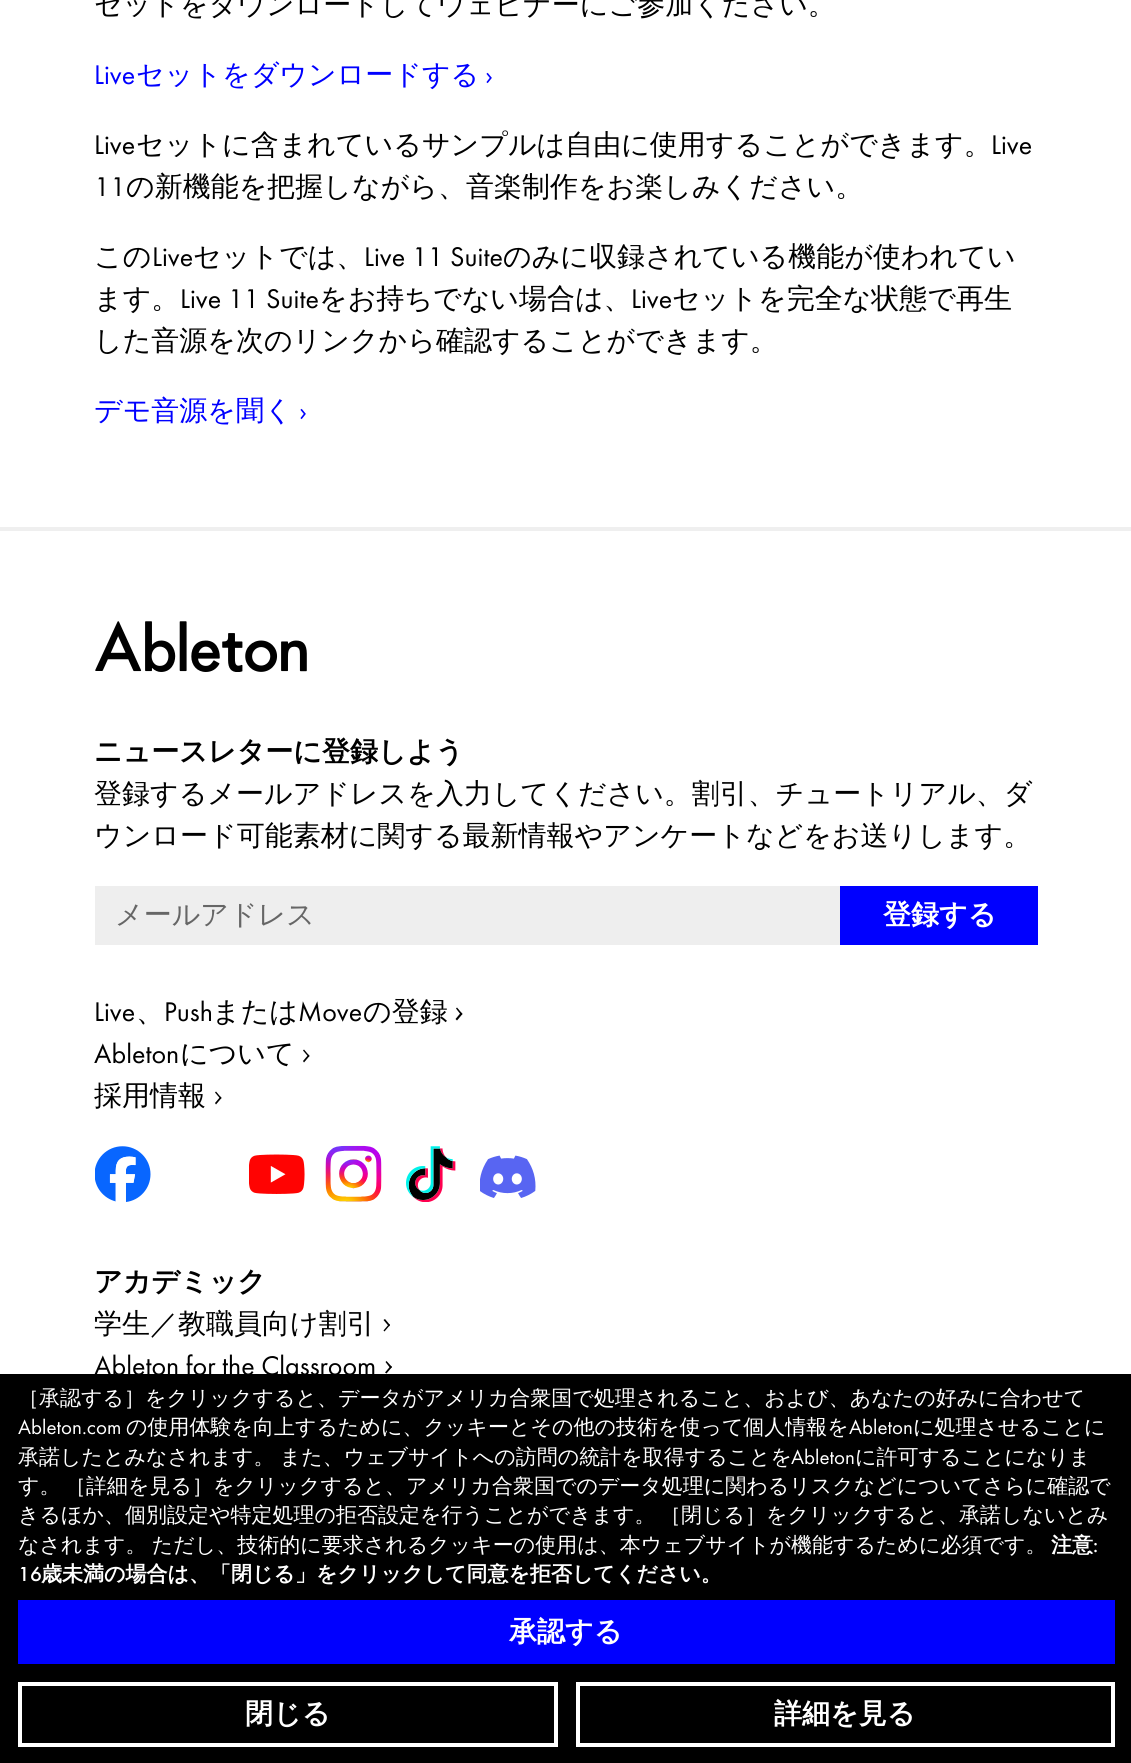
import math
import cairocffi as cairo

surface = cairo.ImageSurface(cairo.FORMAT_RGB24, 1131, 1763)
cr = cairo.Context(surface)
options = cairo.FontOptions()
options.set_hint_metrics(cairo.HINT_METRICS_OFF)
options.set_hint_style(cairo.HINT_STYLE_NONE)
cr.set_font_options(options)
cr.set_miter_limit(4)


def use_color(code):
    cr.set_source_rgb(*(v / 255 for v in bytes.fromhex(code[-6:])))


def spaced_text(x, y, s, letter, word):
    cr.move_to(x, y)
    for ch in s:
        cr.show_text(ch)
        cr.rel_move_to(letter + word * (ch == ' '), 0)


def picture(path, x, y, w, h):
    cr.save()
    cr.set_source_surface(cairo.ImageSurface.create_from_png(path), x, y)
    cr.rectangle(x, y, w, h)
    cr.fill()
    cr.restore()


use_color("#ffffff")
cr.paint()
cr.select_font_face("WenQuanYi Zen Hei Medium")
cr.set_font_size(28)
use_color("#000000")
cr.move_to(94, 14)
cr.show_text("セットをダウンロードしてウェビナーにご参加ください。")
cr.select_font_face("Futura PT")
use_color("#0000ff")
cr.move_to(94, 84)
cr.show_text("Live")
cr.select_font_face("WenQuanYi Zen Hei Medium")
cr.move_to(136, 84)
cr.show_text("セットをダウンロードする")
cr.select_font_face("Futura PT")
cr.move_to(485, 84)
cr.show_text("›")
use_color("#000000")
cr.move_to(94, 154)
cr.show_text("Live")
cr.select_font_face("WenQuanYi Zen Hei Medium")
cr.move_to(136, 154)
cr.show_text("セットに含まれているサンプルは自由に使用することができます。")
cr.select_font_face("Futura PT")
cr.move_to(991, 154)
cr.show_text("Live")
cr.move_to(94, 196)
cr.show_text("11")
cr.select_font_face("WenQuanYi Zen Hei Medium")
cr.move_to(126, 196)
cr.show_text("の新機能を把握しながら、音楽制作をお楽しみください。")
cr.move_to(94, 266)
cr.show_text("この")
cr.select_font_face("Futura PT")
cr.move_to(152, 266)
cr.show_text("Live")
cr.select_font_face("WenQuanYi Zen Hei Medium")
cr.move_to(193, 266)
cr.show_text("セットでは、")
cr.select_font_face("Futura PT")
cr.move_to(364, 266)
cr.show_text("Live 11 Suite")
cr.select_font_face("WenQuanYi Zen Hei Medium")
cr.move_to(503, 266)
cr.show_text("のみに収録されている機能が使われてい")
cr.move_to(94, 308)
cr.show_text("ます。")
cr.select_font_face("Futura PT")
cr.move_to(180, 308)
cr.show_text("Live 11 Suite")
cr.select_font_face("WenQuanYi Zen Hei Medium")
cr.move_to(319, 308)
cr.show_text("をお持ちでない場合は、")
cr.select_font_face("Futura PT")
cr.move_to(631, 308)
cr.show_text("Live")
cr.select_font_face("WenQuanYi Zen Hei Medium")
cr.move_to(672, 308)
cr.show_text("セットを完全な状態で再生")
cr.move_to(94, 350)
cr.show_text("した音源を次のリンクから確認することができます。")
use_color("#0000ff")
cr.move_to(94, 420)
cr.show_text("デモ音源を聞く")
cr.select_font_face("Futura PT")
cr.move_to(299, 420)
cr.show_text("›")
use_color("#efefef")
cr.rectangle(0, 527, 1131, 4)
cr.fill()
picture("img1.png", 95, 621, 212, 51)
cr.select_font_face("WenQuanYi Zen Hei", cairo.FONT_SLANT_NORMAL, cairo.FONT_WEIGHT_BOLD)
use_color("#000000")
cr.move_to(94, 761)
cr.show_text("ニュースレターに登録しよう")
cr.select_font_face("WenQuanYi Zen Hei Medium")
cr.move_to(94, 803)
cr.show_text("登録するメールアドレスを入力してください。割引、チュートリアル、ダ")
cr.move_to(94, 845)
cr.show_text("ウンロード可能素材に関する最新情報やアンケートなどをお送りします。")
use_color("#eeeeee")
cr.rectangle(95, 886, 745, 59)
cr.fill()
use_color("#666666")
cr.move_to(115, 924)
cr.show_text("メールアドレス")
use_color("#0000ff")
cr.rectangle(840, 886, 198, 59)
cr.fill()
cr.select_font_face("WenQuanYi Zen Hei", cairo.FONT_SLANT_NORMAL, cairo.FONT_WEIGHT_BOLD)
use_color("#ffffff")
cr.move_to(883, 924)
cr.show_text("登録する")
cr.select_font_face("Futura PT")
use_color("#000000")
cr.move_to(94, 1021)
cr.show_text("Live")
cr.select_font_face("WenQuanYi Zen Hei Medium")
cr.move_to(136, 1021)
cr.show_text("、")
cr.select_font_face("Futura PT")
cr.move_to(164, 1021)
cr.show_text("Push")
cr.select_font_face("WenQuanYi Zen Hei Medium")
cr.move_to(212, 1021)
cr.show_text("または")
cr.select_font_face("Futura PT")
cr.move_to(298, 1021)
cr.show_text("Move")
cr.select_font_face("WenQuanYi Zen Hei Medium")
cr.move_to(363, 1021)
cr.show_text("の登録")
cr.new_path()
cr.move_to(457, 1007.5)
cr.line_to(462.5, 1014)
cr.line_to(461, 1015)
cr.line_to(456, 1008.5)
cr.close_path()
cr.fill()
cr.new_path()
cr.move_to(461, 1012.5)
cr.line_to(462.5, 1014)
cr.line_to(457, 1020.5)
cr.line_to(455.5, 1019)
cr.close_path()
cr.fill()
cr.select_font_face("Futura PT")
cr.move_to(94, 1063)
cr.show_text("Ableton")
cr.select_font_face("WenQuanYi Zen Hei Medium")
cr.move_to(180, 1063)
cr.show_text("について")
cr.new_path()
cr.move_to(304, 1049.5)
cr.line_to(309.5, 1056)
cr.line_to(308.5, 1057)
cr.line_to(303, 1050.5)
cr.close_path()
cr.fill()
cr.new_path()
cr.move_to(308.5, 1054.5)
cr.line_to(309.5, 1056)
cr.line_to(304, 1062.5)
cr.line_to(303, 1061)
cr.close_path()
cr.fill()
cr.move_to(94, 1105)
cr.show_text("採用情報")
cr.new_path()
cr.move_to(216, 1091.5)
cr.line_to(221.5, 1098)
cr.line_to(220.5, 1099)
cr.line_to(215, 1092.5)
cr.close_path()
cr.fill()
cr.new_path()
cr.move_to(220.5, 1096.5)
cr.line_to(221.5, 1098)
cr.line_to(216, 1104.5)
cr.line_to(215, 1103)
cr.close_path()
cr.fill()
picture("img2.png", 95, 1146, 56, 56)
picture("img3.png", 249, 1154, 56, 40)
picture("img4.png", 325, 1145, 57, 57)
picture("img5.png", 406, 1146, 50, 56)
picture("img6.png", 480, 1155, 56, 43)
cr.select_font_face("WenQuanYi Zen Hei", cairo.FONT_SLANT_NORMAL, cairo.FONT_WEIGHT_BOLD)
cr.move_to(94, 1291)
cr.show_text("アカデミック")
cr.select_font_face("WenQuanYi Zen Hei Medium")
cr.move_to(94, 1333)
cr.show_text("学生／教職員向け割引")
cr.new_path()
cr.move_to(385, 1319)
cr.line_to(390, 1325)
cr.line_to(389, 1326.5)
cr.line_to(383.5, 1320)
cr.close_path()
cr.fill()
cr.new_path()
cr.move_to(389, 1324)
cr.line_to(390, 1325)
cr.line_to(384.5, 1331.5)
cr.line_to(383.5, 1330.5)
cr.close_path()
cr.move_to(386.5, 1361)
cr.line_to(392, 1367)
cr.line_to(390.5, 1368.5)
cr.line_to(385.5, 1362)
cr.close_path()
cr.fill()
cr.select_font_face("Futura PT")
cr.move_to(94, 1375)
cr.show_text("Ableton for the Classroom")
cr.new_path()
cr.move_to(390.5, 1366)
cr.line_to(392, 1367)
cr.line_to(386.5, 1373.5)
cr.line_to(385, 1372.5)
cr.close_path()
cr.fill()
cr.rectangle(0, 1374, 1131, 389)
cr.fill()
cr.select_font_face("WenQuanYi Zen Hei Medium")
cr.set_font_size(21)
use_color("#ffffff")
cr.move_to(18, 1405)
cr.show_text("［承認する］をクリックすると、データがアメリカ合衆国で処理されること、および、あなたの好みに合わせて")
cr.select_font_face("Futura PT")
cr.move_to(18, 1434)
cr.show_text("Ableton.com")
cr.select_font_face("WenQuanYi Zen Hei Medium")
cr.move_to(126, 1434)
cr.show_text("の使用体験を向上するために、クッキーとその他の技術を使って個人情報を")
cr.select_font_face("Futura PT")
cr.move_to(849, 1434)
cr.show_text("Ableton")
cr.select_font_face("WenQuanYi Zen Hei Medium")
cr.move_to(913, 1434)
cr.show_text("に処理させることに")
spaced_text(18, 1464, "承諾したとみなされます。 また、ウェブサイトへの訪問の統計を取得することを", 0, -1)
cr.select_font_face("Futura PT")
cr.move_to(791, 1464)
cr.show_text("Ableton")
cr.select_font_face("WenQuanYi Zen Hei Medium")
cr.move_to(855, 1464)
cr.show_text("に許可することになりま")
cr.move_to(18, 1493)
cr.show_text("す。")
cr.move_to(65, 1493)
cr.show_text("［詳細を見る］をクリックすると、アメリカ合衆国でのデータ処理に関わるリスクなどについてさらに確認で")
cr.move_to(18, 1522)
cr.show_text("きるほか、個別設定や特定処理の拒否設定を行うことができます。")
cr.move_to(660, 1522)
cr.show_text("［閉じる］をクリックすると、承諾しないとみ")
spaced_text(18, 1552, "なされます。 ただし、技術的に要求されるクッキーの使用は、本ウェブサイトが機能するために必須です。", 0, -1)
cr.select_font_face("WenQuanYi Zen Hei", cairo.FONT_SLANT_NORMAL, cairo.FONT_WEIGHT_BOLD)
cr.move_to(1051, 1552)
cr.show_text("注意")
cr.select_font_face("Futura PT Medium")
cr.move_to(1093, 1552)
cr.show_text(":")
cr.move_to(18, 1581)
cr.show_text("16")
cr.select_font_face("WenQuanYi Zen Hei", cairo.FONT_SLANT_NORMAL, cairo.FONT_WEIGHT_BOLD)
cr.move_to(41, 1581)
cr.show_text("歳未満の場合は、「閉じる」をクリックして同意を拒否してください。")
use_color("#0000ff")
cr.rectangle(18, 1600, 1097, 64)
cr.fill()
cr.set_font_size(28)
use_color("#ffffff")
cr.move_to(509, 1641)
cr.show_text("承認する")
cr.rectangle(20, 1684, 536, 61)
cr.set_line_width(4)
cr.stroke()
cr.move_to(245, 1723)
cr.show_text("閉じる")
cr.rectangle(578, 1684, 535, 61)
cr.stroke()
cr.move_to(774, 1723)
cr.show_text("詳細を見る")
surface.write_to_png("result.png")
